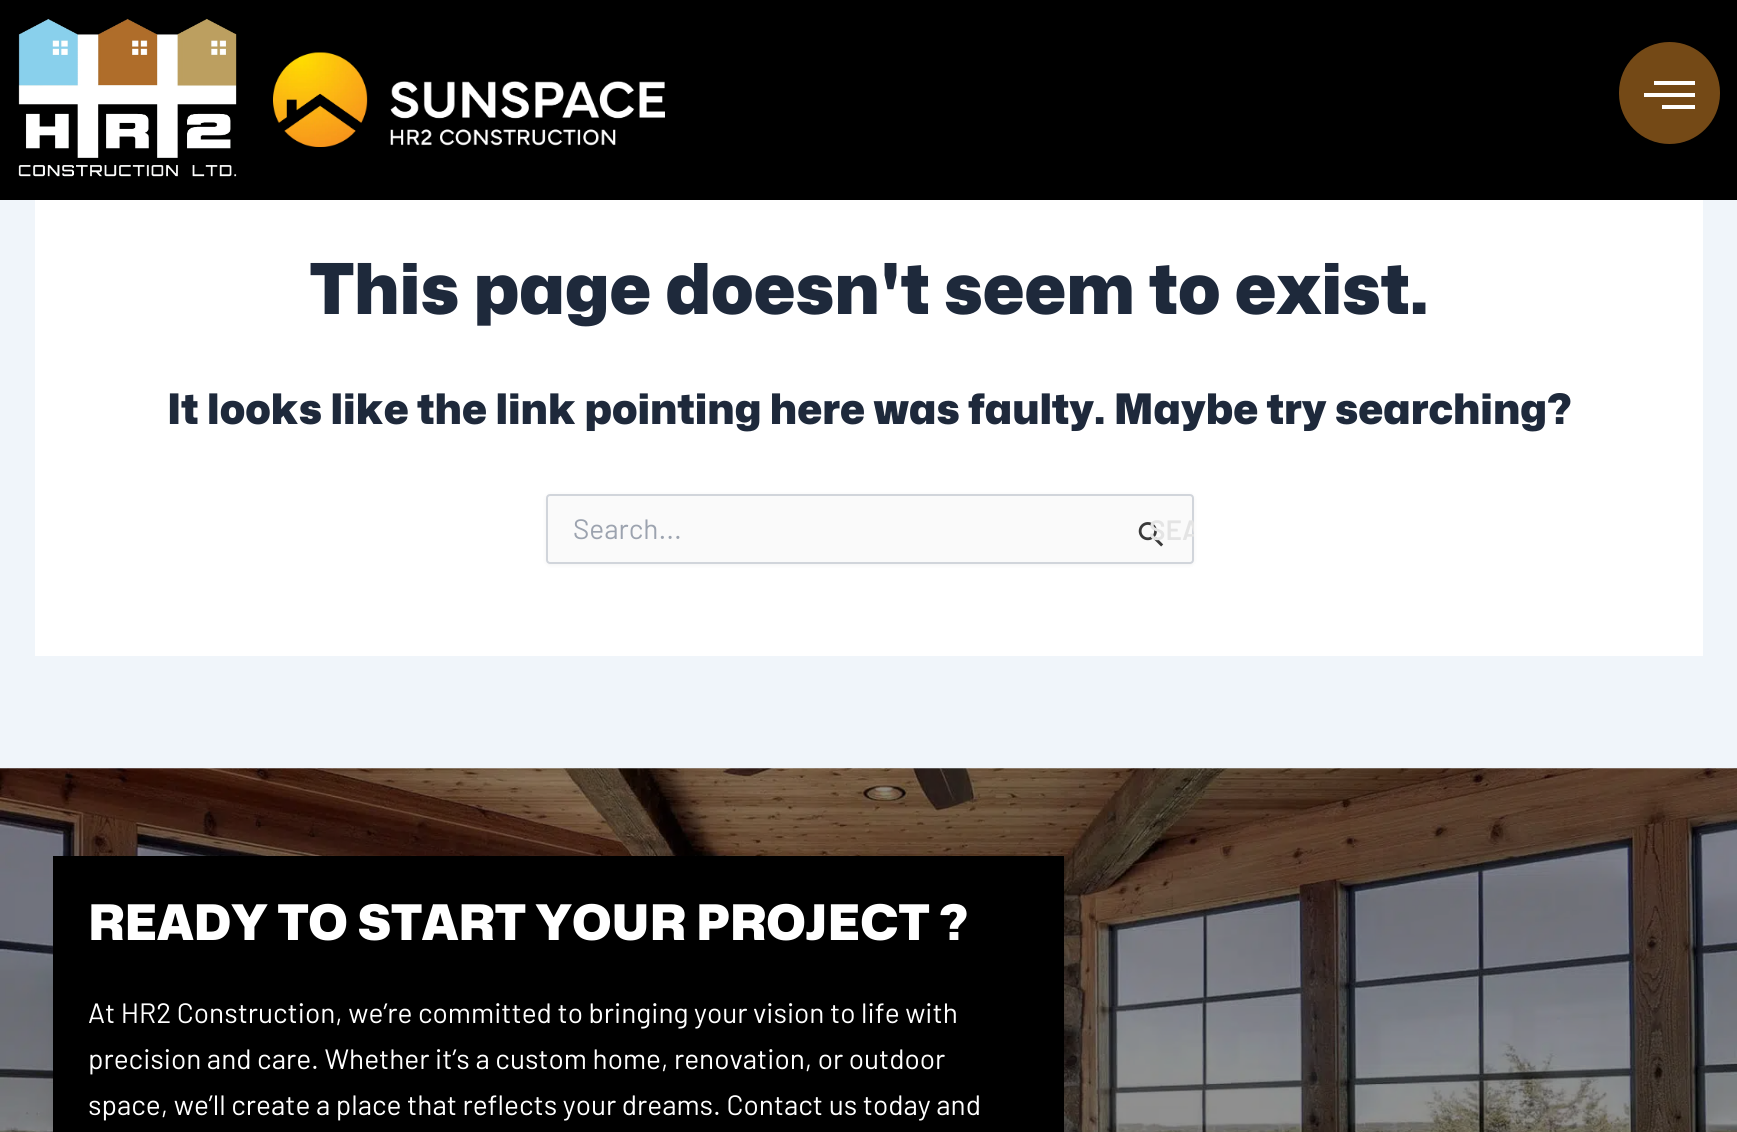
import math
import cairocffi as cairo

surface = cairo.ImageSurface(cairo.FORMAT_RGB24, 1737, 1132)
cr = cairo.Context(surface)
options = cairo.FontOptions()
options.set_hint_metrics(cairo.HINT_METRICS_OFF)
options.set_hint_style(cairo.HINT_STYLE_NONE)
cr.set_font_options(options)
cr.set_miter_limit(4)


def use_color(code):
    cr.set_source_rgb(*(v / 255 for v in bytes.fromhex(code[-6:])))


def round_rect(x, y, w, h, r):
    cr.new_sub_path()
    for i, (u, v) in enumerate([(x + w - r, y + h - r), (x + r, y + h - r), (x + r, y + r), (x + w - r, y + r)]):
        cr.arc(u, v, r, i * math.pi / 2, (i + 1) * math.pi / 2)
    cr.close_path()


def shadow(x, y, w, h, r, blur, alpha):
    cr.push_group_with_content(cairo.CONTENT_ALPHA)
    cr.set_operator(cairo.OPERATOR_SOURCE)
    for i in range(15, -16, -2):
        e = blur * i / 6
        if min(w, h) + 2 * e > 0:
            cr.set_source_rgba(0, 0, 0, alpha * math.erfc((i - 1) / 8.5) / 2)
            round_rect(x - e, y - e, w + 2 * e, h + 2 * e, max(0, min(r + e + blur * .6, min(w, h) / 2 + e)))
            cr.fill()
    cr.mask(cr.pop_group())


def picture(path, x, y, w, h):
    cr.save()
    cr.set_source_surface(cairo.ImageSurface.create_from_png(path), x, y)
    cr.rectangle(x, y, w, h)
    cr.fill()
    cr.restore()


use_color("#f0f5fa")
cr.paint()
use_color("#000000")
cr.rectangle(0, 0, 1737, 200)
cr.fill()
picture("img1.png", 18, 18, 219, 159)
picture("img2.png", 273, 52, 392, 95)
use_color("#744916")
round_rect(1619, 42, 101, 102, 50.5)
cr.fill()
use_color("#ffffff")
cr.new_path()
cr.move_to(1644, 97)
cr.line_to(1695, 97)
cr.line_to(1695, 93)
cr.line_to(1644, 93)
cr.close_path()
cr.move_to(1662, 109)
cr.line_to(1695, 109)
cr.line_to(1695, 105)
cr.line_to(1662, 105)
cr.close_path()
cr.move_to(1654, 81)
cr.line_to(1654, 85)
cr.line_to(1695, 85)
cr.line_to(1695, 81)
cr.close_path()
cr.fill()
cr.rectangle(35, 200, 1668, 456)
cr.fill()
cr.select_font_face("Mona Sans Black")
cr.set_font_size(70)
use_color("#1e293b")
cr.move_to(310, 314)
cr.show_text("This page doesn't seem to exist.")
cr.set_font_size(42)
cr.move_to(167, 424)
cr.show_text("It looks like the link pointing here was faulty. Maybe try searching?")
use_color("#000000")
shadow(546, 495, 648, 70, 4, 2, 0.05)
use_color("#fafafa")
round_rect(547, 495, 646, 68, 3)
cr.fill_preserve()
use_color("#d1d5db")
cr.stroke()
cr.select_font_face("Barlow")
cr.set_font_size(28)
use_color("#9ca3af")
cr.move_to(573, 539)
cr.show_text("Search...")
picture("img3.png", 1138, 522, 26, 25)
cr.save()
round_rect(1115, 494, 79, 73, 4)
cr.clip()
cr.select_font_face("Barlow SemiBold")
use_color("#e4e4e4")
cr.move_to(1149, 540)
cr.show_text("SEA")
cr.restore()
picture("img4.png", 0, 768, 1737, 364)
use_color("#000000")
cr.rectangle(53, 856, 1011, 276)
cr.fill()
cr.select_font_face("Mona Sans Black")
cr.set_font_size(49)
use_color("#ffffff")
cr.move_to(88, 940)
cr.show_text("READY TO START YOUR PROJECT ?")
cr.select_font_face("Barlow")
cr.set_font_size(28)
cr.move_to(88, 1023)
cr.show_text("At HR2 Construction, we’re committed to bringing your vision to life with")
cr.move_to(88, 1069)
cr.show_text("precision and care. Whether it’s a custom home, renovation, or outdoor")
cr.move_to(88, 1115)
cr.show_text("space, we’ll create a place that reflects your dreams. Contact us today and")
surface.write_to_png("result.png")
